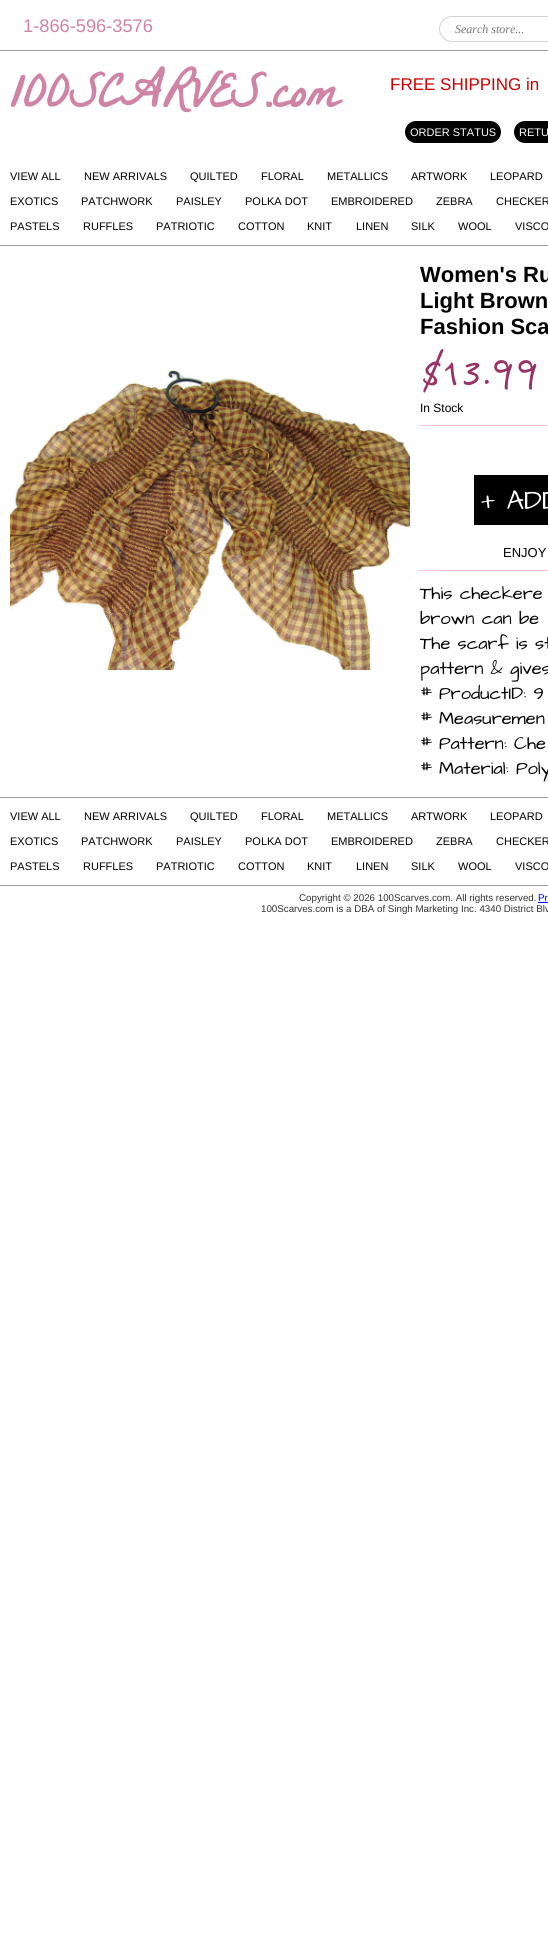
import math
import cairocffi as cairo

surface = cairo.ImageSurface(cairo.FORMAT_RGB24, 548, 1938)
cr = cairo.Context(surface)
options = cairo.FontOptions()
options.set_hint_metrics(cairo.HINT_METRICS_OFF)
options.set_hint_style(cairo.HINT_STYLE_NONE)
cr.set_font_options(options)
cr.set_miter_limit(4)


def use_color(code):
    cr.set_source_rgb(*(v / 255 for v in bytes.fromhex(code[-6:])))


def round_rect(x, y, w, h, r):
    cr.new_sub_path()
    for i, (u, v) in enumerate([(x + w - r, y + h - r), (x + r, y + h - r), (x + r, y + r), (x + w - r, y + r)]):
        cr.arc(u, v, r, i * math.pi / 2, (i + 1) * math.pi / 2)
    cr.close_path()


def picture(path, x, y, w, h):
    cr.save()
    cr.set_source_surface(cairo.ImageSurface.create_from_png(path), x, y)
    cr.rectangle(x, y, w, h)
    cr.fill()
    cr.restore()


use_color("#ffffff")
cr.paint()
cr.select_font_face("Liberation Sans")
cr.set_font_size(18.25)
use_color("#d084a5")
cr.move_to(23, 32)
cr.show_text("1-866-596-3576")
round_rect(439.5, 16.5, 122, 25, 12.5)
use_color("#d2d2d2")
cr.set_line_width(1)
cr.stroke()
cr.select_font_face("Liberation Serif", cairo.FONT_SLANT_ITALIC)
cr.set_font_size(12)
use_color("#757575")
cr.move_to(455, 33)
cr.show_text("Search store...")
use_color("#9f9f9f")
cr.rectangle(0, 50, 548, 1)
cr.fill()
cr.select_font_face("La Belle Aurore", cairo.FONT_SLANT_NORMAL, cairo.FONT_WEIGHT_BOLD)
cr.set_font_size(50)
use_color("#d084a5")
cr.move_to(10, 107)
cr.show_text("100SCARVES.com")
cr.select_font_face("Liberation Sans")
cr.set_font_size(17)
use_color("#cc0000")
cr.move_to(390, 90)
cr.show_text("FREE SHIPPING in")
use_color("#000000")
round_rect(405, 121, 96, 22, 11)
cr.fill()
cr.set_font_size(11)
use_color("#ffffff")
cr.move_to(410, 136)
cr.show_text("ORDER STATUS")
use_color("#000000")
round_rect(514, 121, 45, 22, 11)
cr.fill()
use_color("#ffffff")
cr.move_to(519, 136)
cr.show_text("RETU")
use_color("#000000")
cr.move_to(10, 180)
cr.show_text("VIEW ALL")
cr.move_to(84, 180)
cr.show_text("NEW ARRIVALS")
cr.move_to(190, 180)
cr.show_text("QUILTED")
cr.move_to(261, 180)
cr.show_text("FLORAL")
cr.move_to(327, 180)
cr.show_text("METALLICS")
cr.move_to(411, 180)
cr.show_text("ARTWORK")
cr.move_to(490, 180)
cr.show_text("LEOPARD")
cr.move_to(10, 205)
cr.show_text("EXOTICS")
cr.move_to(81, 205)
cr.show_text("PATCHWORK")
cr.move_to(176, 205)
cr.show_text("PAISLEY")
cr.move_to(245, 205)
cr.show_text("POLKA DOT")
cr.move_to(331, 205)
cr.show_text("EMBROIDERED")
cr.move_to(436, 205)
cr.show_text("ZEBRA")
cr.move_to(496, 205)
cr.show_text("CHECKER")
cr.move_to(10, 230)
cr.show_text("PASTELS")
cr.move_to(83, 230)
cr.show_text("RUFFLES")
cr.move_to(156, 230)
cr.show_text("PATRIOTIC")
cr.move_to(238, 230)
cr.show_text("COTTON")
cr.move_to(307, 230)
cr.show_text("KNIT")
cr.move_to(356, 230)
cr.show_text("LINEN")
cr.move_to(411, 230)
cr.show_text("SILK")
cr.move_to(458, 230)
cr.show_text("WOOL")
cr.move_to(515, 230)
cr.show_text("VISCO")
use_color("#9f9f9f")
cr.rectangle(0, 245, 548, 1)
cr.fill()
picture("img1.png", 10, 370, 400, 300)
cr.select_font_face("Liberation Sans", cairo.FONT_SLANT_NORMAL, cairo.FONT_WEIGHT_BOLD)
cr.set_font_size(22)
use_color("#000000")
cr.move_to(420, 282)
cr.show_text("Women's Ru")
cr.move_to(420, 308)
cr.show_text("Light Brown")
cr.move_to(420, 334)
cr.show_text("Fashion Sca")
cr.select_font_face("Reenie Beanie Medium")
cr.set_font_size(61)
use_color("#993366")
cr.move_to(420, 386)
cr.show_text("$13.99")
cr.select_font_face("Liberation Sans")
cr.set_font_size(12)
use_color("#000000")
cr.move_to(420, 412)
cr.show_text("In Stock")
use_color("#ffc0cb")
cr.rectangle(420, 425, 128, 1)
cr.fill()
cr.rectangle(420, 570, 128, 1)
cr.fill()
use_color("#000000")
cr.rectangle(474, 475, 74, 50)
cr.fill()
cr.select_font_face("Architects Daughter")
cr.set_font_size(27.5)
use_color("#ffffff")
cr.move_to(481, 509)
cr.show_text("+ ADD")
cr.select_font_face("Liberation Sans")
cr.set_font_size(13)
use_color("#000000")
cr.move_to(503, 557)
cr.show_text("ENJOY")
cr.select_font_face("Architects Daughter")
cr.set_font_size(18.25)
cr.move_to(420, 599)
cr.show_text("This checkere")
cr.move_to(420, 624)
cr.show_text("brown can be")
cr.move_to(420, 649)
cr.show_text("The scarf is st")
cr.move_to(420, 674)
cr.show_text("pattern & gives")
cr.move_to(420, 699)
cr.show_text("# ProductID: 9")
cr.move_to(420, 724)
cr.show_text("# Measuremen")
cr.move_to(420, 749)
cr.show_text("# Pattern: Che")
cr.move_to(420, 774)
cr.show_text("# Material: Poly")
use_color("#9f9f9f")
cr.rectangle(0, 797, 548, 1)
cr.fill()
cr.select_font_face("Liberation Sans")
cr.set_font_size(11)
use_color("#000000")
cr.move_to(10, 820)
cr.show_text("VIEW ALL")
cr.move_to(84, 820)
cr.show_text("NEW ARRIVALS")
cr.move_to(190, 820)
cr.show_text("QUILTED")
cr.move_to(261, 820)
cr.show_text("FLORAL")
cr.move_to(327, 820)
cr.show_text("METALLICS")
cr.move_to(411, 820)
cr.show_text("ARTWORK")
cr.move_to(490, 820)
cr.show_text("LEOPARD")
cr.move_to(10, 845)
cr.show_text("EXOTICS")
cr.move_to(81, 845)
cr.show_text("PATCHWORK")
cr.move_to(176, 845)
cr.show_text("PAISLEY")
cr.move_to(245, 845)
cr.show_text("POLKA DOT")
cr.move_to(331, 845)
cr.show_text("EMBROIDERED")
cr.move_to(436, 845)
cr.show_text("ZEBRA")
cr.move_to(496, 845)
cr.show_text("CHECKER")
cr.move_to(10, 870)
cr.show_text("PASTELS")
cr.move_to(83, 870)
cr.show_text("RUFFLES")
cr.move_to(156, 870)
cr.show_text("PATRIOTIC")
cr.move_to(238, 870)
cr.show_text("COTTON")
cr.move_to(307, 870)
cr.show_text("KNIT")
cr.move_to(356, 870)
cr.show_text("LINEN")
cr.move_to(411, 870)
cr.show_text("SILK")
cr.move_to(458, 870)
cr.show_text("WOOL")
cr.move_to(515, 870)
cr.show_text("VISCO")
use_color("#9f9f9f")
cr.rectangle(0, 885, 548, 1)
cr.fill()
cr.set_font_size(9.75)
use_color("#333333")
cr.move_to(299, 901)
cr.show_text("Copyright © 2026 100Scarves.com. All rights reserved.")
use_color("#0000ee")
cr.move_to(538, 901)
cr.show_text("Pr")
cr.rectangle(538, 902, 10, 1)
cr.fill()
use_color("#333333")
cr.move_to(261, 912)
cr.show_text("100Scarves.com is a DBA of Singh Marketing Inc. 4340 District Blv")
surface.write_to_png("result.png")
